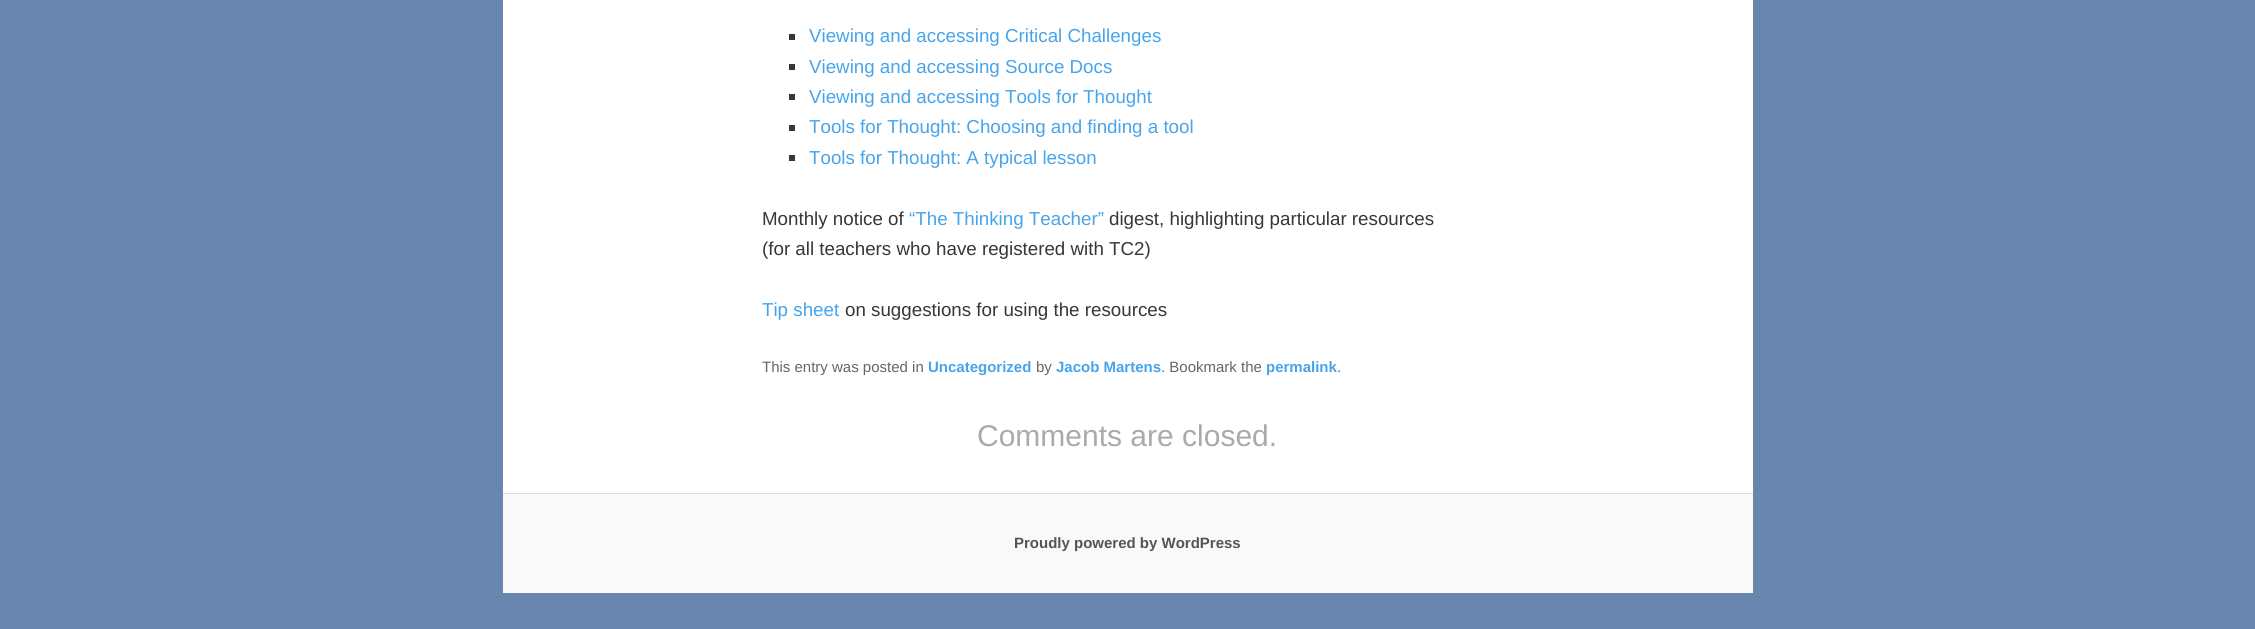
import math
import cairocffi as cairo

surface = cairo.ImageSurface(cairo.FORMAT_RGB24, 2255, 629)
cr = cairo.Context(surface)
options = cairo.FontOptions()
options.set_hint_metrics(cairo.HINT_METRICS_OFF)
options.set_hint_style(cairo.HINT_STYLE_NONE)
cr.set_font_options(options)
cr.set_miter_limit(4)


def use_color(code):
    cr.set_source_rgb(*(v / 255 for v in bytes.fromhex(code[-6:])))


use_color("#6886ad")
cr.paint()
use_color("#ffffff")
cr.rectangle(503, 0, 1250, 493)
cr.fill()
use_color("#373737")
cr.rectangle(789, 34, 6, 6)
cr.fill()
cr.select_font_face("Liberation Sans")
cr.set_font_size(18.75)
use_color("#47a4eb")
cr.move_to(809, 42)
cr.show_text("Viewing and accessing Critical Challenges")
use_color("#373737")
cr.rectangle(789, 64, 6, 6)
cr.fill()
use_color("#47a4eb")
cr.move_to(809, 73)
cr.show_text("Viewing and accessing Source Docs")
use_color("#373737")
cr.rectangle(789, 94, 6, 6)
cr.fill()
use_color("#47a4eb")
cr.move_to(809, 103)
cr.show_text("Viewing and accessing Tools for Thought")
use_color("#373737")
cr.rectangle(789, 125, 6, 6)
cr.fill()
use_color("#47a4eb")
cr.move_to(809, 133)
cr.show_text("Tools for Thought: Choosing and finding a tool")
use_color("#373737")
cr.rectangle(789, 155, 6, 6)
cr.fill()
use_color("#47a4eb")
cr.move_to(809, 164)
cr.show_text("Tools for Thought: A typical lesson")
use_color("#373737")
cr.move_to(762, 225)
cr.show_text("Monthly notice of")
use_color("#47a4eb")
cr.move_to(909, 225)
cr.show_text("“The Thinking Teacher”")
use_color("#373737")
cr.move_to(1109, 225)
cr.show_text("digest, highlighting particular resources")
cr.move_to(762, 255)
cr.show_text("(for all teachers who have registered with TC2)")
use_color("#47a4eb")
cr.move_to(762, 316)
cr.show_text("Tip sheet")
use_color("#373737")
cr.move_to(845, 316)
cr.show_text("on suggestions for using the resources")
cr.set_font_size(15)
use_color("#666666")
cr.move_to(762, 372)
cr.show_text("This entry was posted in")
cr.select_font_face("Liberation Sans", cairo.FONT_SLANT_NORMAL, cairo.FONT_WEIGHT_BOLD)
use_color("#47a4eb")
cr.move_to(928, 372)
cr.show_text("Uncategorized")
cr.select_font_face("Liberation Sans")
use_color("#666666")
cr.move_to(1036, 372)
cr.show_text("by")
cr.select_font_face("Liberation Sans", cairo.FONT_SLANT_NORMAL, cairo.FONT_WEIGHT_BOLD)
use_color("#47a4eb")
cr.move_to(1056, 372)
cr.show_text("Jacob Martens")
cr.select_font_face("Liberation Sans")
use_color("#666666")
cr.move_to(1161, 372)
cr.show_text(". Bookmark the")
cr.select_font_face("Liberation Sans", cairo.FONT_SLANT_NORMAL, cairo.FONT_WEIGHT_BOLD)
use_color("#47a4eb")
cr.move_to(1266, 372)
cr.show_text("permalink")
cr.select_font_face("Liberation Sans")
use_color("#666666")
cr.move_to(1337, 372)
cr.show_text(".")
cr.set_font_size(30)
use_color("#aaaaaa")
cr.move_to(977, 446)
cr.show_text("Comments are closed.")
use_color("#f9f9f9")
cr.rectangle(503, 494, 1250, 99)
cr.fill()
use_color("#dddddd")
cr.rectangle(503, 493, 1250, 1)
cr.fill()
cr.select_font_face("Liberation Sans", cairo.FONT_SLANT_NORMAL, cairo.FONT_WEIGHT_BOLD)
cr.set_font_size(15)
use_color("#555555")
cr.move_to(1014, 548)
cr.show_text("Proudly powered by WordPress")
surface.write_to_png("result.png")
